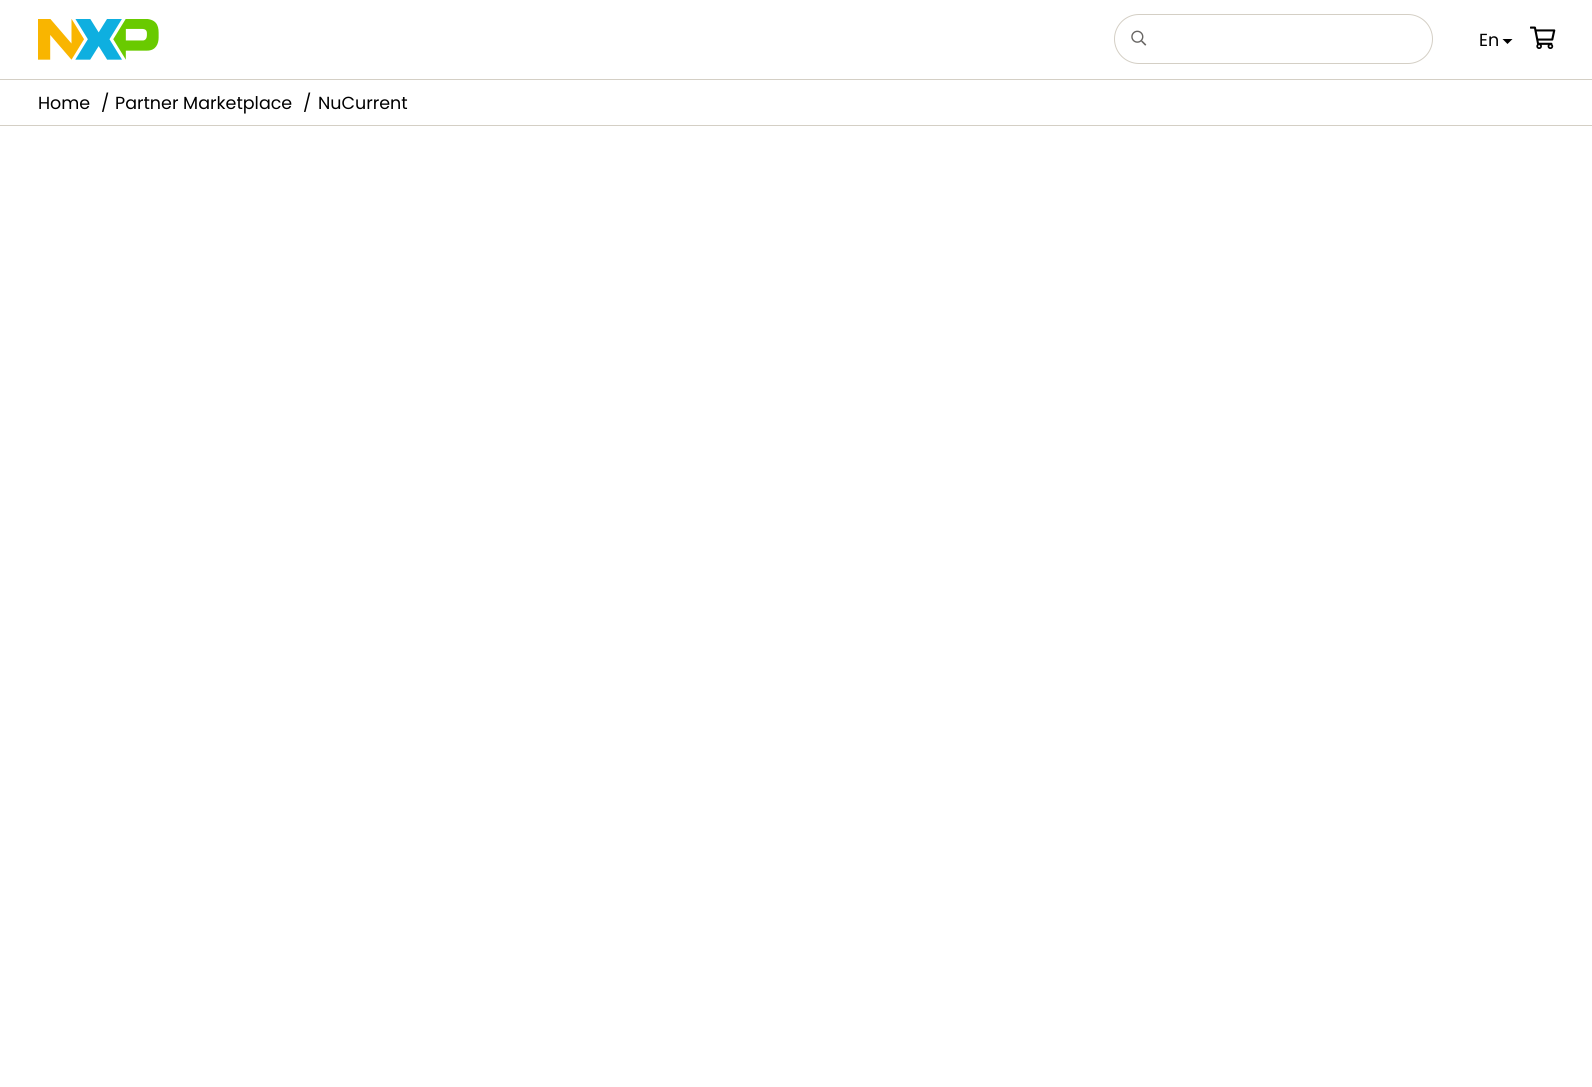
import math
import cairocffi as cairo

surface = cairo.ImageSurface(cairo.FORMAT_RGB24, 1592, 1087)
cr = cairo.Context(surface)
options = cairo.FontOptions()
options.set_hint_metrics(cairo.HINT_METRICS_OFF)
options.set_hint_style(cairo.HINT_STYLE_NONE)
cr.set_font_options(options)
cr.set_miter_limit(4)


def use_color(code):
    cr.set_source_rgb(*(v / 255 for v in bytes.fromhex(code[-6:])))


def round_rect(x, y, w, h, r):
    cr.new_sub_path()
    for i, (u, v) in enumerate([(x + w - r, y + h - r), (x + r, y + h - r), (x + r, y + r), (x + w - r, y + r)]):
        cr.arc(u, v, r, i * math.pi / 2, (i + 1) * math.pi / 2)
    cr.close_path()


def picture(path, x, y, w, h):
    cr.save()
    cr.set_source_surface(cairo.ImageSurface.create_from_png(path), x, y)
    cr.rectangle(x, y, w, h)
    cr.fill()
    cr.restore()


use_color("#ffffff")
cr.paint()
use_color("#d4cfc5")
cr.rectangle(0, 79, 1592, 1)
cr.fill()
picture("img1.png", 38, 19, 121, 41)
round_rect(1114.5, 14.5, 318, 49, 24.5)
cr.set_line_width(1)
cr.stroke()
picture("img2.png", 1131, 30, 16, 16)
cr.select_font_face("Poppins")
cr.set_font_size(17.5)
use_color("#000000")
cr.move_to(1479, 46)
cr.show_text("En")
cr.new_path()
cr.move_to(1502.5, 39)
cr.line_to(1512.5, 39)
cr.line_to(1507.5, 44)
cr.close_path()
cr.fill()
picture("img3.png", 1530, 26, 26, 23)
use_color("#d4cfc5")
cr.rectangle(0, 125, 1592, 1)
cr.fill()
use_color("#000000")
cr.move_to(38, 109)
cr.show_text("Home")
cr.move_to(101, 109)
cr.show_text("/")
cr.move_to(115, 109)
cr.show_text("Partner Marketplace")
cr.move_to(303, 109)
cr.show_text("/")
cr.move_to(318, 109)
cr.show_text("NuCurrent")
surface.write_to_png("result.png")
